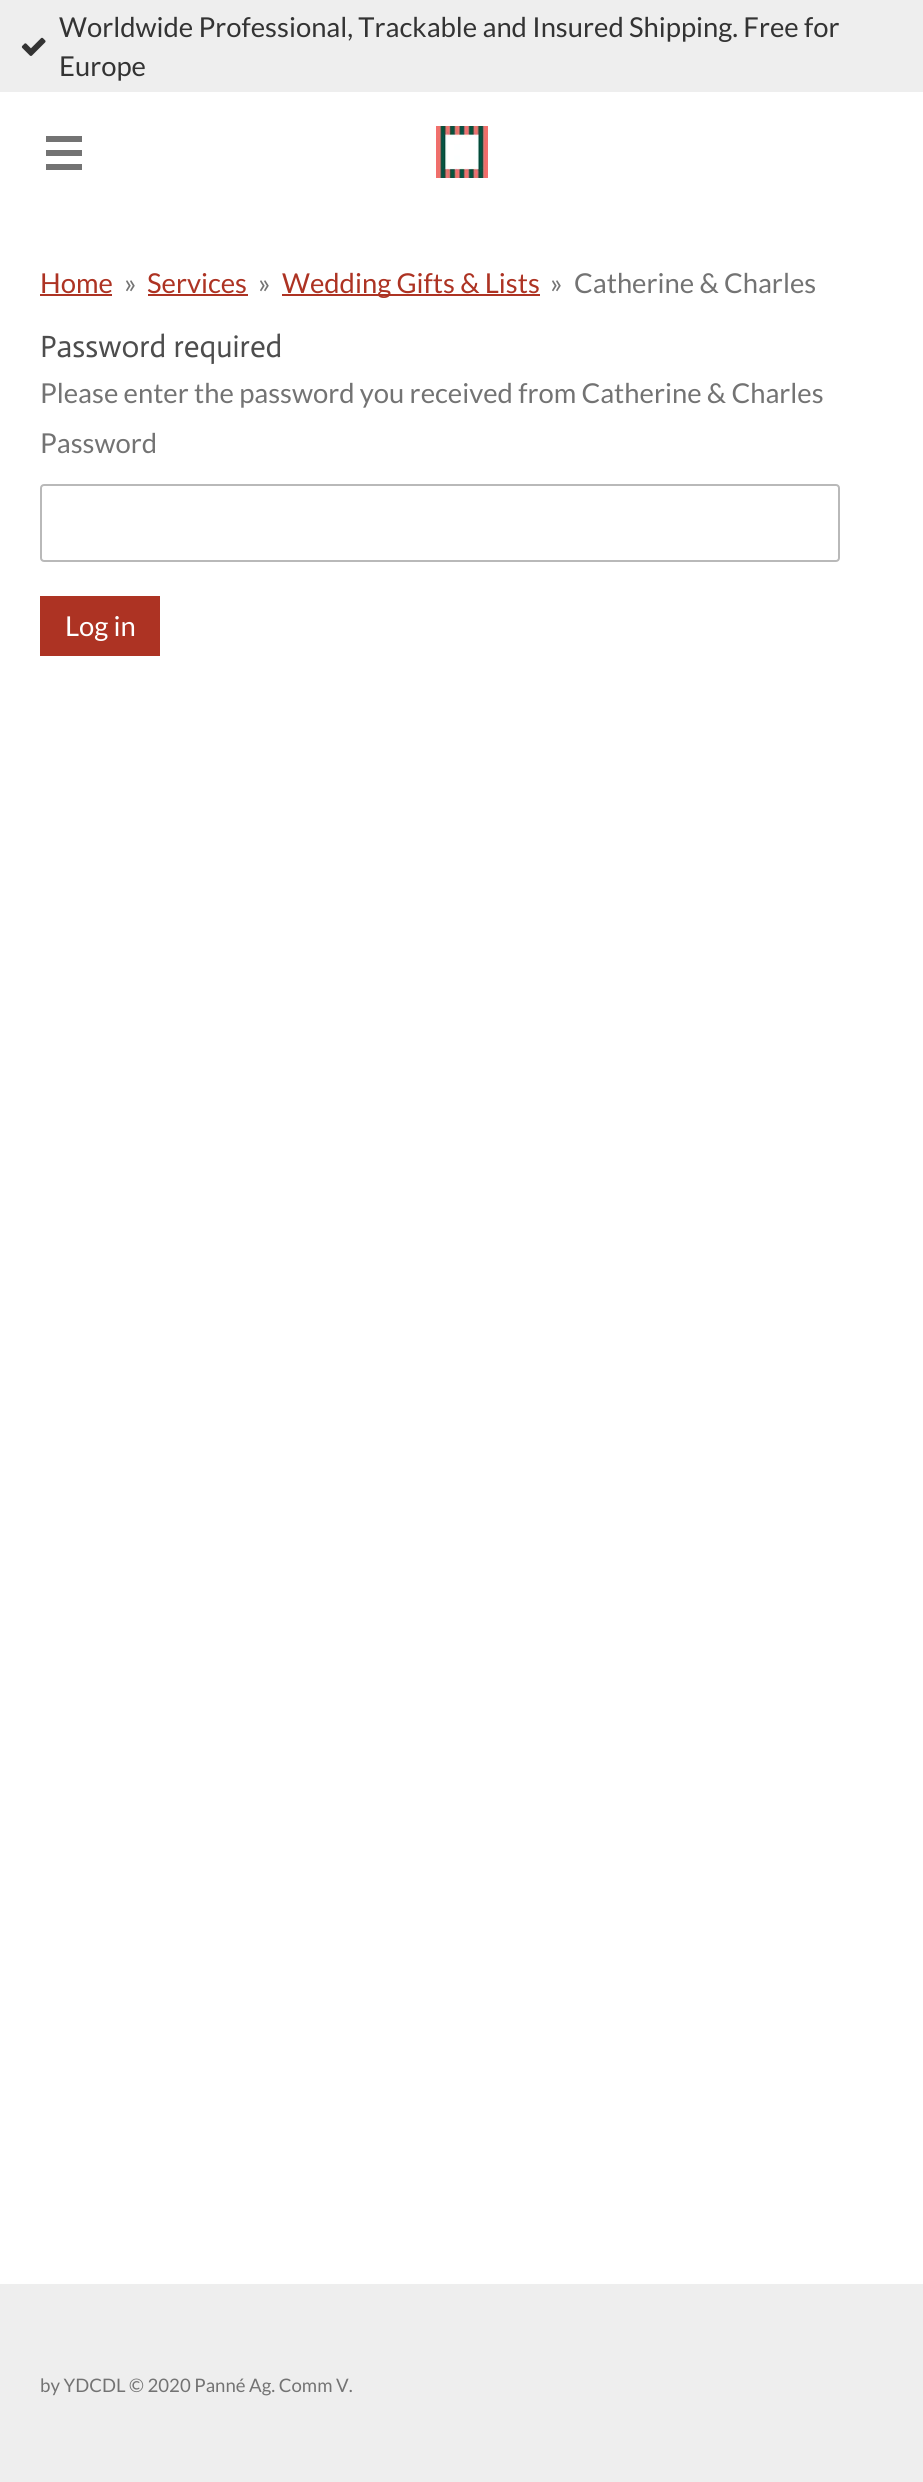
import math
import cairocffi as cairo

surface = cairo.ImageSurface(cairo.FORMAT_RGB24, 923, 2482)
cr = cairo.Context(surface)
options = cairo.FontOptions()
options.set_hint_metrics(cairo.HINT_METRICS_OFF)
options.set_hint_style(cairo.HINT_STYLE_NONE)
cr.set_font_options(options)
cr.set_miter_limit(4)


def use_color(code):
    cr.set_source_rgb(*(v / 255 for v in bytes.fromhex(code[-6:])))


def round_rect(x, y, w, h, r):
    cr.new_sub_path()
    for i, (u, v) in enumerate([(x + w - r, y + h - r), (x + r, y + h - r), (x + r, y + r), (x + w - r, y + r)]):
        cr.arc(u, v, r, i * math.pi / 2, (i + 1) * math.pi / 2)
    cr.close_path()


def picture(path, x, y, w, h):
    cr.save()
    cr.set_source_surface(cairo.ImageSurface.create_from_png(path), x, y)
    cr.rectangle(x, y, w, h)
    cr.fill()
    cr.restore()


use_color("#ffffff")
cr.paint()
use_color("#eeeeee")
cr.rectangle(0, 0, 923, 92)
cr.fill()
picture("img1.png", 21, 37, 25, 19)
cr.select_font_face("Lato")
cr.set_font_size(27.4)
use_color("#333333")
cr.move_to(59, 37)
cr.show_text("Worldwide Professional, Trackable and Insured Shipping. Free for")
cr.move_to(59, 76)
cr.show_text("Europe")
use_color("#737373")
cr.rectangle(46, 150, 36, 6)
cr.fill()
cr.rectangle(46, 136, 36, 6)
cr.fill()
cr.rectangle(46, 164, 36, 6)
cr.fill()
picture("img2.png", 436, 126, 52, 52)
use_color("#ad3323")
cr.move_to(40, 293)
cr.show_text("Home")
cr.rectangle(40, 294, 72, 2)
cr.fill()
use_color("#737373")
cr.move_to(124, 293)
cr.show_text("»")
use_color("#ad3323")
cr.move_to(147, 293)
cr.show_text("Services")
cr.rectangle(148, 294, 100, 2)
cr.fill()
use_color("#737373")
cr.move_to(258, 293)
cr.show_text("»")
use_color("#ad3323")
cr.rectangle(282, 294, 258, 2)
cr.fill()
cr.move_to(282, 293)
cr.show_text("Wedding Gifts & Lists")
use_color("#737373")
cr.move_to(550, 293)
cr.show_text("»")
cr.move_to(574, 293)
cr.show_text("Catherine & Charles")
cr.select_font_face("Actor")
cr.set_font_size(31)
use_color("#4d4d4d")
cr.move_to(40, 357)
cr.show_text("Password required")
cr.select_font_face("Lato")
cr.set_font_size(27.4)
use_color("#737373")
cr.move_to(40, 403)
cr.show_text("Please enter the password you received from Catherine & Charles")
cr.move_to(40, 453)
cr.show_text("Password")
round_rect(41, 485, 798, 76, 3)
use_color("#b9b9b9")
cr.stroke()
use_color("#ad3323")
cr.rectangle(40, 596, 120, 60)
cr.fill()
use_color("#ffffff")
cr.move_to(65, 636)
cr.show_text("Log in")
use_color("#eeeeee")
cr.rectangle(0, 2284, 923, 198)
cr.fill()
cr.set_font_size(18.6)
use_color("#737373")
cr.move_to(40, 2392)
cr.show_text("by YDCDL © 2020 Panné Ag. Comm V.")
surface.write_to_png("result.png")
